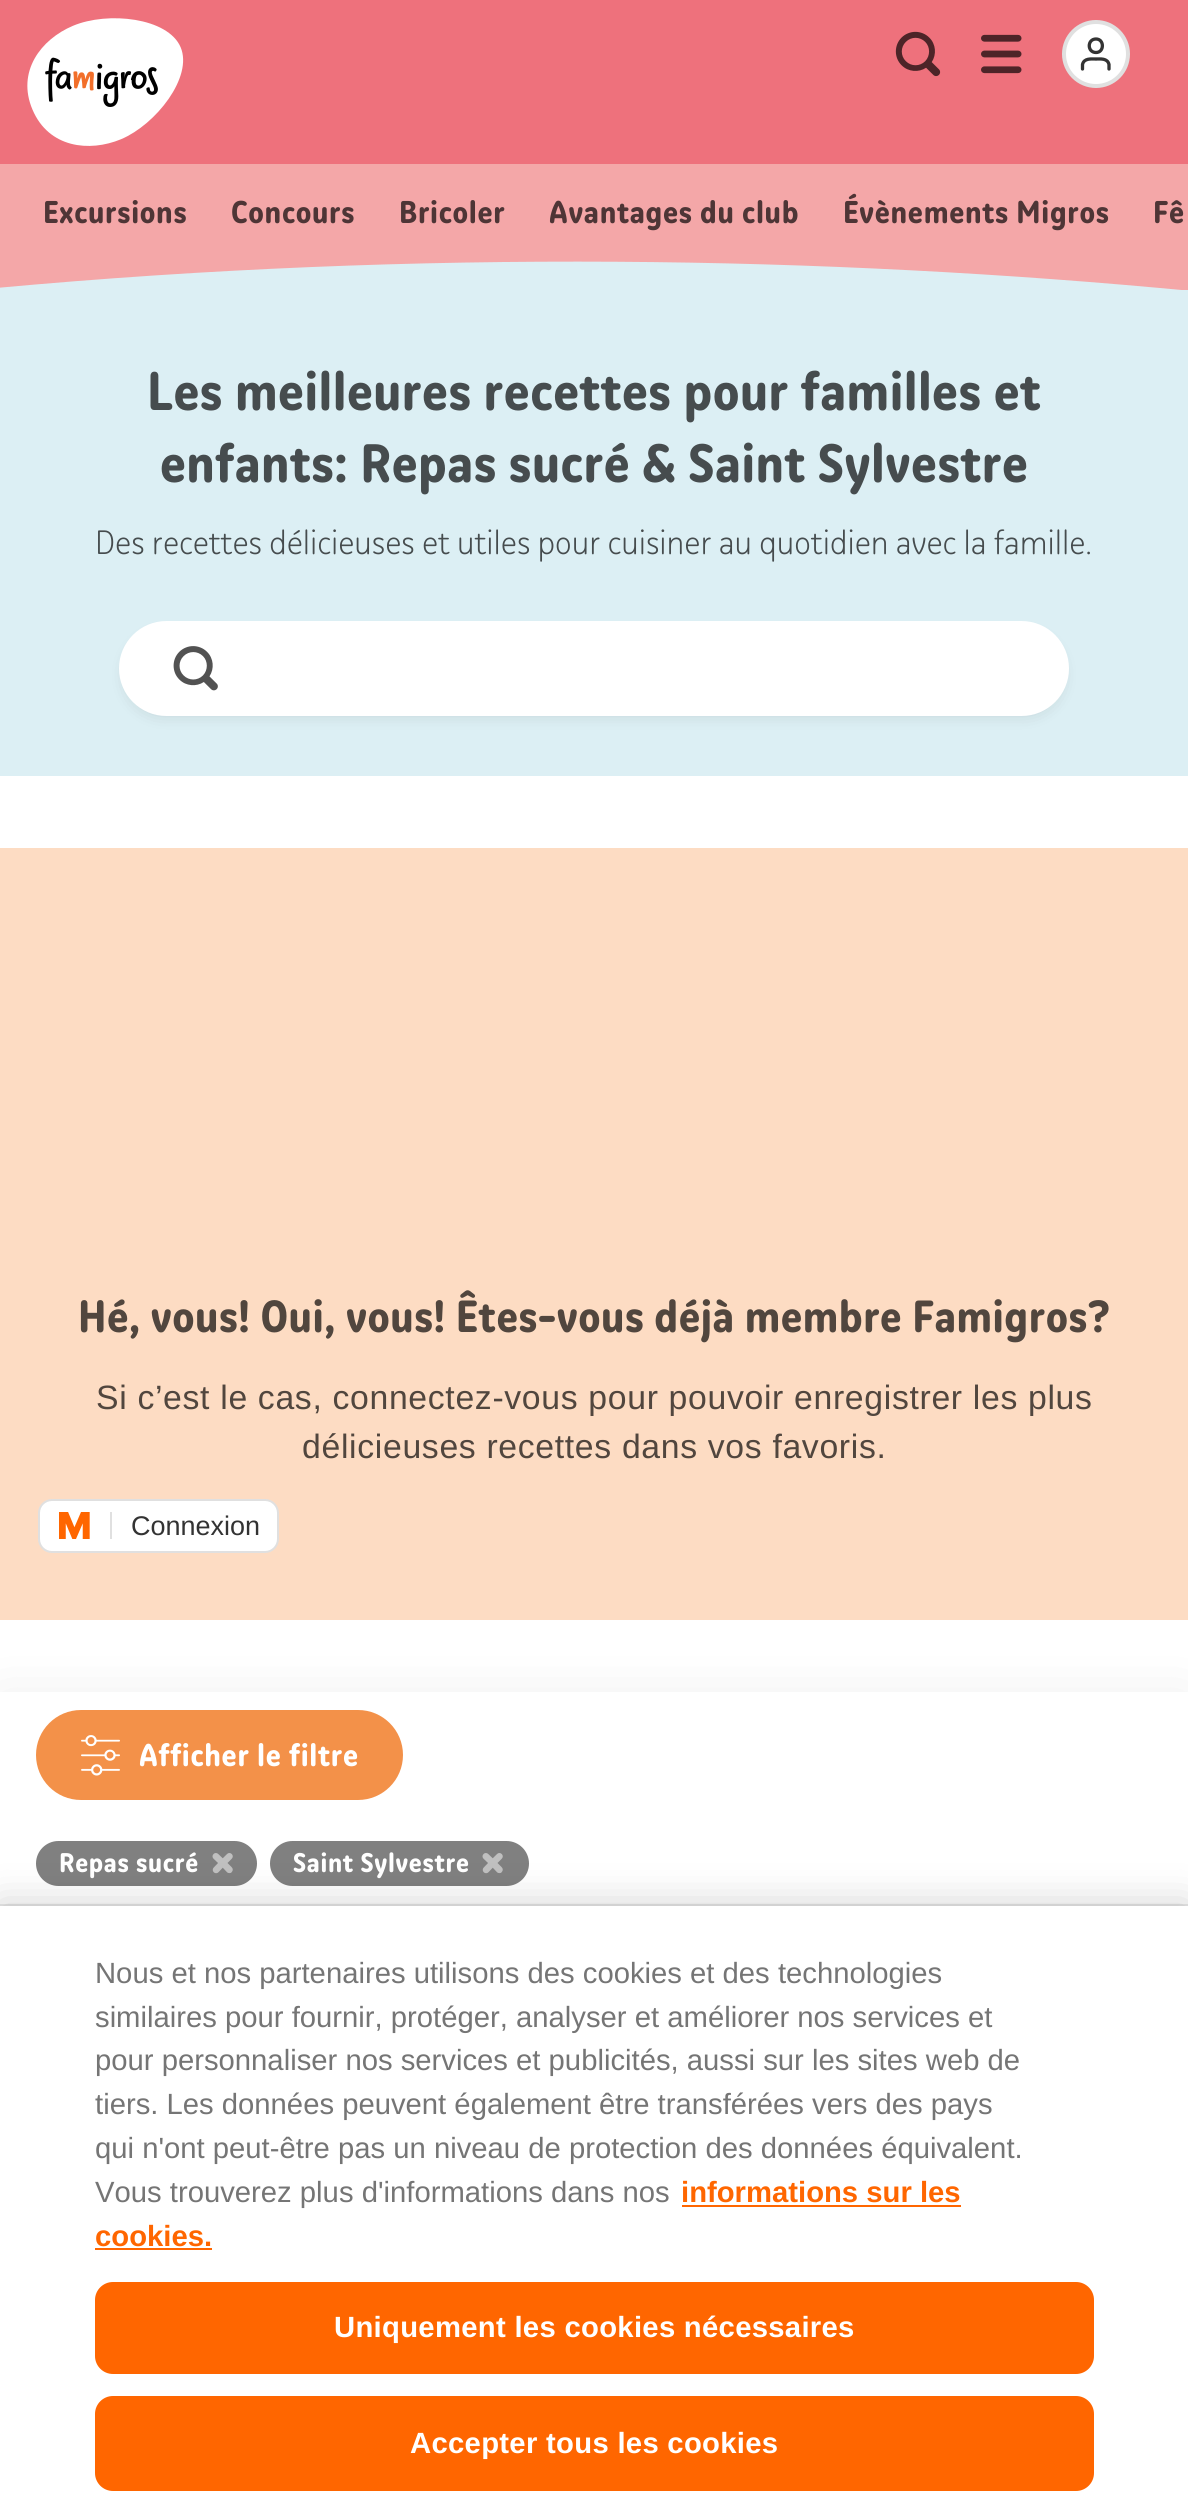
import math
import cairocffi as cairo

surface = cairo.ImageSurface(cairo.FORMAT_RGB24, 1188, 2513)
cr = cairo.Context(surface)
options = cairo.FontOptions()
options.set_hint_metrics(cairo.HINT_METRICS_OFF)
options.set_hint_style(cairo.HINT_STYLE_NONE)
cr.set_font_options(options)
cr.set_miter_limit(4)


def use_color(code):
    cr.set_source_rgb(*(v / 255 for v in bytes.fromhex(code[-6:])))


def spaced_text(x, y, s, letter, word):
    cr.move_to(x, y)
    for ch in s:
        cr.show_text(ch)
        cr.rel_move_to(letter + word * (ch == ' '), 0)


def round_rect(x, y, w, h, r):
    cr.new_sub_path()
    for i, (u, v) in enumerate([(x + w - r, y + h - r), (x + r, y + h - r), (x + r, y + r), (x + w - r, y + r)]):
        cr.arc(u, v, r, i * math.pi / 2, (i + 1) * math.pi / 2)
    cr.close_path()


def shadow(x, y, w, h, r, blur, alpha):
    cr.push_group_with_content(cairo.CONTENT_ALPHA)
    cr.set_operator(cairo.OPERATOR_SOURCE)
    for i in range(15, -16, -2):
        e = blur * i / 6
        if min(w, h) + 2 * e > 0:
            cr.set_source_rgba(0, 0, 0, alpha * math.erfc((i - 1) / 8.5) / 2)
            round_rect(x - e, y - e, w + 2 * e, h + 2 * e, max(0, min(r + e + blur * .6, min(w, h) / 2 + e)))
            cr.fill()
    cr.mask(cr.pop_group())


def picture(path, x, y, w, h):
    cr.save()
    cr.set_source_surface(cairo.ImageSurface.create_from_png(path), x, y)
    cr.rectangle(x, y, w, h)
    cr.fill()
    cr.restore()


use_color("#ffffff")
cr.paint()
use_color("#ee717c")
cr.rectangle(0, 0, 1188, 164)
cr.fill()
picture("img1.png", 27, 18, 157, 128)
picture("img2.png", 895, 31, 46, 46)
picture("img3.png", 981, 34, 41, 40)
use_color("#ffffff")
cr.arc(1096, 54, 32, 0, 2 * math.pi)
cr.fill_preserve()
use_color("#e0e0e0")
cr.set_line_width(4)
cr.stroke()
cr.new_path()
cr.move_to(1109, 69)
cr.line_to(1109, 64.5)
cr.curve_to(1107.5, 58, 1100.5, 59, 1096, 59)
cr.curve_to(1091, 59, 1084, 58, 1082.5, 64.5)
cr.line_to(1082.5, 69)
cr.move_to(1096, 52.5)
cr.curve_to(1104.5, 52.5, 1104.5, 39, 1096, 39)
cr.curve_to(1087, 39, 1087, 52.5, 1096, 52.5)
cr.close_path()
use_color("#333333")
cr.set_line_width(3.3)
cr.set_line_cap(cairo.LINE_CAP_ROUND)
cr.set_line_join(cairo.LINE_JOIN_ROUND)
cr.stroke()
use_color("#f4a7a8")
cr.rectangle(0, 164, 1188, 63)
cr.fill()
use_color("#dceff4")
cr.rectangle(0, 261, 1188, 515)
cr.fill()
cr.save()
cr.rectangle(0, 227, 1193, 63)
cr.clip()
use_color("#f4a7a8")
cr.new_path()
cr.move_to(-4, 223)
cr.line_to(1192, 223)
cr.line_to(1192, 291)
cr.curve_to(827, 256, 419, 249, -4, 288)
cr.close_path()
cr.fill()
cr.restore()
cr.select_font_face("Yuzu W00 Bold", cairo.FONT_SLANT_NORMAL, cairo.FONT_WEIGHT_BOLD)
cr.set_font_size(31.5)
use_color("#4e3536")
spaced_text(43, 223, "Excursions", 0.67, 0)
spaced_text(231, 223, "Concours", 0.67, 0)
spaced_text(399, 223, "Bricoler", 0.67, 0)
spaced_text(549, 223, "Avantages du club", 0.67, 0)
spaced_text(843, 223, "Évènements Migros", 0.67, 0)
spaced_text(1153, 223, "Fê", 0.67, 0)
cr.set_font_size(54)
use_color("#464c4e")
spaced_text(147, 410, "Les meilleures recettes pour familles et", 0.45, 0)
spaced_text(160, 482, "enfants: Repas sucré & Saint Sylvestre", 0.45, 0)
cr.select_font_face("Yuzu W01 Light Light")
cr.set_font_size(33.75)
cr.move_to(95, 554)
cr.show_text("Des recettes délicieuses et utiles pour cuisiner au quotidien avec la famille.")
use_color("#000000")
shadow(128, 637, 932, 76, 38, 9, 0.15)
use_color("#ffffff")
round_rect(119, 621, 950, 95, 47.5)
cr.fill()
picture("img4.png", 173, 646, 45, 45)
use_color("#fddcc3")
cr.rectangle(0, 848, 1188, 772)
cr.fill()
cr.select_font_face("Yuzu W00 Bold", cairo.FONT_SLANT_NORMAL, cairo.FONT_WEIGHT_BOLD)
cr.set_font_size(45)
use_color("#51463e")
spaced_text(78, 1332, "Hé, vous! Oui, vous! Êtes-vous déjà membre Famigros?", 0.45, 0)
cr.select_font_face("Liberation Sans")
cr.set_font_size(33.75)
spaced_text(96, 1409, "Si c’est le cas, connectez-vous pour pouvoir enregistrer les plus", 0.67, 0)
spaced_text(302, 1458, "délicieuses recettes dans vos favoris.", 0.67, 0)
use_color("#ffffff")
round_rect(39, 1500, 239, 52, 13)
cr.fill_preserve()
use_color("#e0e0e0")
cr.set_line_width(2)
cr.set_line_cap(cairo.LINE_CAP_BUTT)
cr.set_line_join(cairo.LINE_JOIN_MITER)
cr.stroke()
picture("img5.png", 59, 1512, 31, 27)
cr.rectangle(110, 1512, 2, 27)
cr.fill()
cr.set_font_size(27)
use_color("#333333")
cr.move_to(131, 1535)
cr.show_text("Connexion")
use_color("#f5f5f5")
cr.rectangle(0, 1904, 1188, 2)
cr.fill()
use_color("#000000")
shadow(0, 1703, 1188, 212, 0, 31.5, 0.08)
use_color("#ffffff")
cr.rectangle(0, 1692, 1188, 212)
cr.fill()
use_color("#f39149")
round_rect(36, 1710, 367, 90, 45)
cr.fill()
picture("img6.png", 81, 1735, 39, 41)
cr.select_font_face("Yuzu W00 Bold", cairo.FONT_SLANT_NORMAL, cairo.FONT_WEIGHT_BOLD)
cr.set_font_size(31.5)
use_color("#ffffff")
spaced_text(139, 1766, "Afficher le filtre", 0.67, 0)
use_color("#808080")
round_rect(36, 1841, 221, 45, 22.5)
cr.fill()
cr.set_font_size(27)
use_color("#ffffff")
spaced_text(59, 1872, "Repas sucré", 0.67, 0)
picture("img7.png", 212, 1853, 21, 21)
use_color("#808080")
round_rect(270, 1841, 259, 45, 22.5)
cr.fill()
use_color("#ffffff")
spaced_text(293, 1872, "Saint Sylvestre", 0.67, 0)
picture("img7.png", 482, 1853, 21, 21)
use_color("#000000")
shadow(0, 1906, 1188, 607, 0, 20, 0.2)
use_color("#ffffff")
cr.rectangle(0, 1906, 1188, 607)
cr.fill()
cr.select_font_face("Liberation Sans")
cr.set_font_size(29.25)
use_color("#757575")
cr.move_to(95, 1983)
cr.show_text("Nous et nos partenaires utilisons des cookies et des technologies")
cr.move_to(95, 2027)
cr.show_text("similaires pour fournir, protéger, analyser et améliorer nos services et")
cr.move_to(95, 2070)
cr.show_text("pour personnaliser nos services et publicités, aussi sur les sites web de")
cr.move_to(95, 2114)
cr.show_text("tiers. Les données peuvent également être transférées vers des pays")
cr.move_to(95, 2158)
cr.show_text("qui n'ont peut-être pas un niveau de protection des données équivalent.")
cr.move_to(95, 2202)
cr.show_text("Vous trouverez plus d'informations dans nos")
cr.select_font_face("Liberation Sans", cairo.FONT_SLANT_NORMAL, cairo.FONT_WEIGHT_BOLD)
use_color("#ff6600")
cr.move_to(681, 2202)
cr.show_text("informations sur les")
cr.rectangle(682, 2205, 279, 2)
cr.fill()
cr.move_to(95, 2246)
cr.show_text("cookies.")
cr.rectangle(95, 2248, 117, 2)
cr.fill()
round_rect(96, 2283, 997, 90, 17)
cr.fill_preserve()
cr.stroke()
use_color("#ffffff")
spaced_text(334, 2337, "Uniquement les cookies nécessaires", 0.3, 0)
use_color("#ff6600")
round_rect(96, 2397, 997, 93, 17)
cr.fill_preserve()
cr.stroke()
use_color("#ffffff")
spaced_text(410, 2453, "Accepter tous les cookies", 0.3, 0)
surface.write_to_png("result.png")
